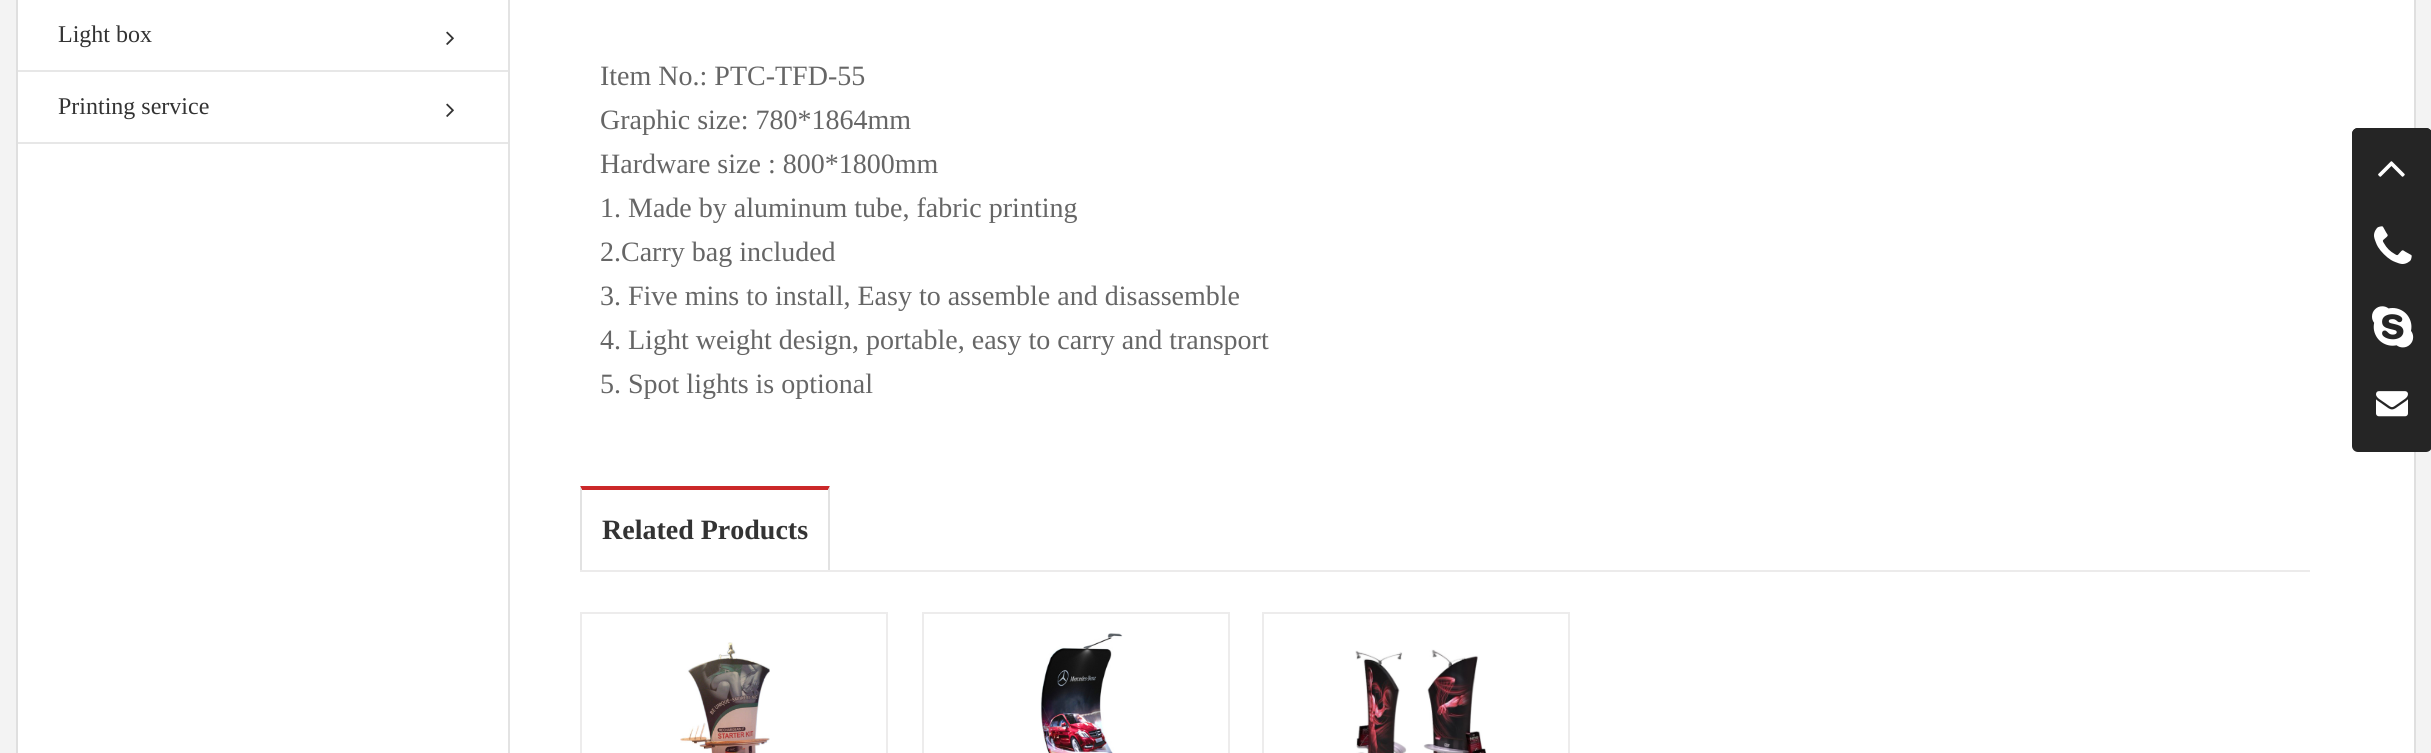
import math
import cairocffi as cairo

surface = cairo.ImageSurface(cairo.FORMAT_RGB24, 2431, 753)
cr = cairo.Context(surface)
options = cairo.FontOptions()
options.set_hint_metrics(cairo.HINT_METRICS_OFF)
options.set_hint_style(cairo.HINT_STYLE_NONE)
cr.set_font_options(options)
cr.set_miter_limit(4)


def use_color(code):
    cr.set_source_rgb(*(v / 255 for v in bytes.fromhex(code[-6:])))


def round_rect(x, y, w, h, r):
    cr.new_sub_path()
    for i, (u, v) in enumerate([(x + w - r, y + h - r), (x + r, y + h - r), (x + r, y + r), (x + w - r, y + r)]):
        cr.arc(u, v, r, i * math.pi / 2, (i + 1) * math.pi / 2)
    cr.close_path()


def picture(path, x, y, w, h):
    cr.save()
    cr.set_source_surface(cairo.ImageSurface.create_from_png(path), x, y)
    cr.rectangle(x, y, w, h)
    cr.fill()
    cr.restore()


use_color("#f3f3f3")
cr.paint()
use_color("#ffffff")
cr.rectangle(18, 0, 2396, 753)
cr.fill()
use_color("#dfdfdf")
cr.rectangle(2414, 0, 2, 753)
cr.fill()
cr.rectangle(16, 0, 2, 753)
cr.fill()
use_color("#e7e7e7")
cr.rectangle(18, 70, 490, 2)
cr.fill()
cr.select_font_face("Liberation Serif")
cr.set_font_size(24)
use_color("#333333")
cr.move_to(58, 42)
cr.show_text("Light box")
picture("img1.png", 446, 31, 8, 14)
use_color("#e7e7e7")
cr.rectangle(18, 142, 490, 2)
cr.fill()
use_color("#333333")
cr.move_to(58, 114)
cr.show_text("Printing service")
picture("img1.png", 446, 103, 8, 14)
use_color("#e3e3e3")
cr.rectangle(508, 0, 2, 753)
cr.fill()
cr.set_font_size(28)
use_color("#666666")
cr.move_to(600, 85)
cr.show_text("Item No.: PTC-TFD-55")
cr.move_to(600, 129)
cr.show_text("Graphic size: 780*1864mm")
cr.move_to(600, 173)
cr.show_text("Hardware size : 800*1800mm")
cr.move_to(600, 217)
cr.show_text("1. Made by aluminum tube, fabric printing")
cr.move_to(600, 261)
cr.show_text("2.Carry bag included")
cr.move_to(600, 305)
cr.show_text("3. Five mins to install, Easy to assemble and disassemble")
cr.move_to(600, 349)
cr.show_text("4. Light weight design, portable, easy to carry and transport")
cr.move_to(600, 393)
cr.show_text("5. Spot lights is optional")
use_color("#ecebeb")
cr.rectangle(580, 570, 1730, 2)
cr.fill()
use_color("#cb2829")
cr.new_path()
cr.move_to(580, 486)
cr.line_to(830, 486)
cr.line_to(828, 490)
cr.line_to(582, 490)
cr.close_path()
cr.fill()
use_color("#e2e2e2")
cr.new_path()
cr.move_to(830, 486)
cr.line_to(830, 570)
cr.line_to(828, 570)
cr.line_to(828, 490)
cr.close_path()
cr.fill()
cr.new_path()
cr.move_to(580, 570)
cr.line_to(580, 486)
cr.line_to(582, 490)
cr.line_to(582, 570)
cr.close_path()
cr.fill()
cr.select_font_face("Liberation Serif", cairo.FONT_SLANT_NORMAL, cairo.FONT_WEIGHT_BOLD)
use_color("#333333")
cr.move_to(602, 539)
cr.show_text("Related Products")
cr.rectangle(581, 613, 306, 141)
use_color("#edecec")
cr.stroke()
picture("img2.png", 680, 642, 90, 111)
cr.rectangle(923, 613, 306, 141)
cr.stroke()
picture("img3.png", 1040, 633, 83, 120)
cr.rectangle(1263, 613, 306, 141)
cr.stroke()
picture("img4.png", 1355, 649, 132, 104)
use_color("#252525")
round_rect(2352, 128, 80, 324, 6)
cr.fill()
round_rect(2352, 128, 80, 80, 6)
cr.fill()
picture("img5.png", 2378, 161, 27, 16)
picture("img6.png", 2374, 226, 38, 38)
picture("img7.png", 2372, 306, 42, 42)
picture("img8.png", 2376, 391, 32, 26)
surface.write_to_png("result.png")
